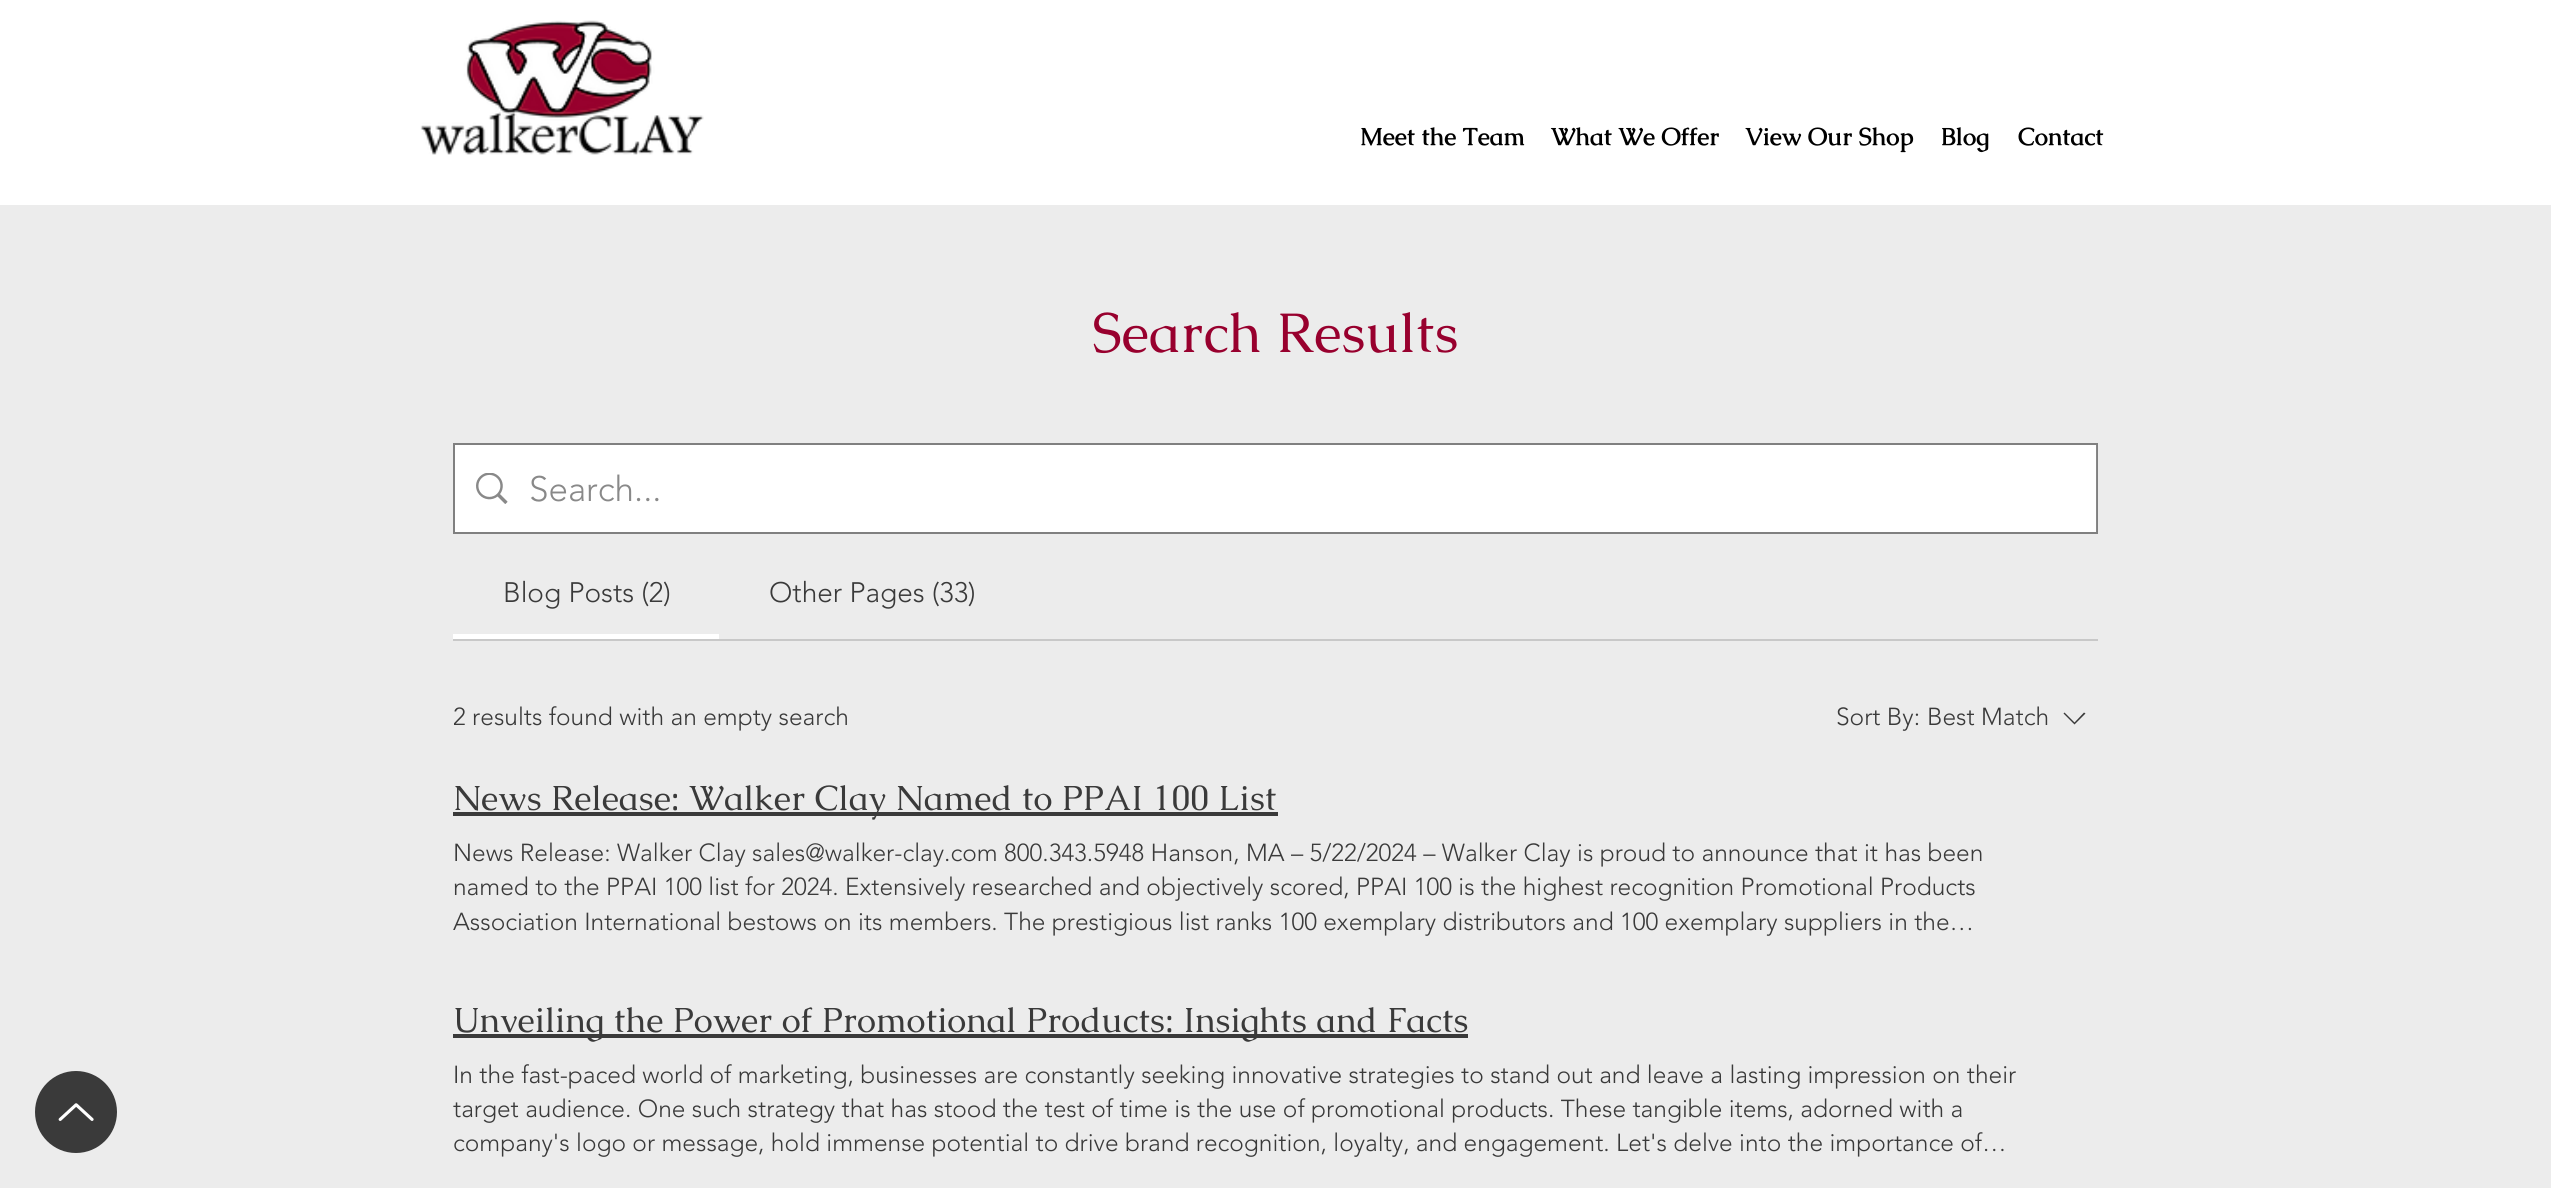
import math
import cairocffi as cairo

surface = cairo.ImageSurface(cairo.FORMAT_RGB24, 2551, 1188)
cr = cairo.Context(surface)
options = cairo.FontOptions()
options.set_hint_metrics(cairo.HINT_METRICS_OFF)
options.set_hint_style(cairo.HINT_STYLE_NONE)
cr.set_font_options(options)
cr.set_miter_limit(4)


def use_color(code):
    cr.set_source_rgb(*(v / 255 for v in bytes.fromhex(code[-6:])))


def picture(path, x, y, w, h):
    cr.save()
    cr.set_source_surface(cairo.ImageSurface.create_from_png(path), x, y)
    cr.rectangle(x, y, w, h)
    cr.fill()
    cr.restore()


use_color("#ececec")
cr.paint()
use_color("#ffffff")
cr.rectangle(0, 0, 2551, 205)
cr.fill()
picture("img1.png", 420, 20, 284, 135)
cr.select_font_face("Caudex", cairo.FONT_SLANT_NORMAL, cairo.FONT_WEIGHT_BOLD)
cr.set_font_size(24.5)
use_color("#000000")
cr.move_to(1360, 145)
cr.show_text("Meet the Team")
cr.move_to(1551, 145)
cr.show_text("What We Offer")
cr.move_to(1745, 145)
cr.show_text("View Our Shop")
cr.move_to(1941, 145)
cr.show_text("Blog")
cr.move_to(2018, 145)
cr.show_text("Contact")
use_color("#3a3a3a")
cr.new_path()
cr.arc(76, 1112, 41, 0, 2 * math.pi)
cr.fill()
picture("img2.png", 58, 1103, 36, 18)
cr.select_font_face("Caudex")
cr.set_font_size(56)
use_color("#98002e")
cr.move_to(1092, 352)
cr.show_text("Search Results")
use_color("#ffffff")
cr.rectangle(455, 445, 1642, 87)
cr.fill()
cr.rectangle(454, 444, 1643, 89)
cr.set_source_rgba(0.227, 0.227, 0.227, 0.6)
cr.stroke()
picture("img3.png", 476, 473, 32, 31)
cr.select_font_face("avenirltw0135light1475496 Light")
cr.set_font_size(35)
use_color("#898989")
cr.move_to(529, 501)
cr.show_text("Search...")
use_color("#c8c8c8")
cr.rectangle(453, 639, 1645, 2)
cr.fill()
use_color("#ffffff")
cr.rectangle(453, 634, 266, 5)
cr.fill()
cr.set_font_size(28)
use_color("#3a3a3a")
cr.move_to(503, 602)
cr.show_text("Blog Posts (2)")
cr.move_to(769, 602)
cr.show_text("Other Pages (33)")
cr.set_font_size(24.5)
cr.move_to(453, 725)
cr.show_text("2 results found with an empty search")
cr.move_to(1836, 725)
cr.show_text("Sort By:")
cr.move_to(1927, 725)
cr.show_text("Best Match")
cr.set_fill_rule(cairo.FILL_RULE_EVEN_ODD)
cr.new_path()
cr.move_to(2084, 712.5)
cr.line_to(2085.5, 713.5)
cr.line_to(2074.5, 724.5)
cr.line_to(2063.5, 713.5)
cr.line_to(2064.5, 712.5)
cr.line_to(2074.5, 722.5)
cr.close_path()
cr.fill()
cr.rectangle(453, 812, 825, 4)
cr.fill()
cr.select_font_face("Caudex")
cr.set_font_size(35)
cr.move_to(453, 810)
cr.show_text("News Release: Walker Clay Named to PPAI 100 List")
cr.select_font_face("avenirltw0135light1475496 Light")
cr.set_font_size(24.5)
cr.move_to(453, 861)
cr.show_text("News Release: Walker Clay sales@walker-clay.com 800.343.5948 Hanson, MA – 5/22/2024 – Walker Clay is proud to announce that it has been")
cr.move_to(453, 895)
cr.show_text("named to the PPAI 100 list for 2024. Extensively researched and objectively scored, PPAI 100 is the highest recognition Promotional Products")
cr.move_to(453, 930)
cr.show_text("Association International bestows on its members. The prestigious list ranks 100 exemplary distributors and 100 exemplary suppliers in the…")
cr.rectangle(453, 1034, 1015, 4)
cr.fill()
cr.select_font_face("Caudex")
cr.set_font_size(35)
cr.move_to(453, 1032)
cr.show_text("Unveiling the Power of Promotional Products: Insights and Facts")
cr.select_font_face("avenirltw0135light1475496 Light")
cr.set_font_size(24.5)
cr.move_to(453, 1083)
cr.show_text("In the fast-paced world of marketing, businesses are constantly seeking innovative strategies to stand out and leave a lasting impression on their")
cr.move_to(453, 1117)
cr.show_text("target audience. One such strategy that has stood the test of time is the use of promotional products. These tangible items, adorned with a")
cr.move_to(453, 1151)
cr.show_text("company's logo or message, hold immense potential to drive brand recognition, loyalty, and engagement. Let's delve into the importance of…")
surface.write_to_png("result.png")
